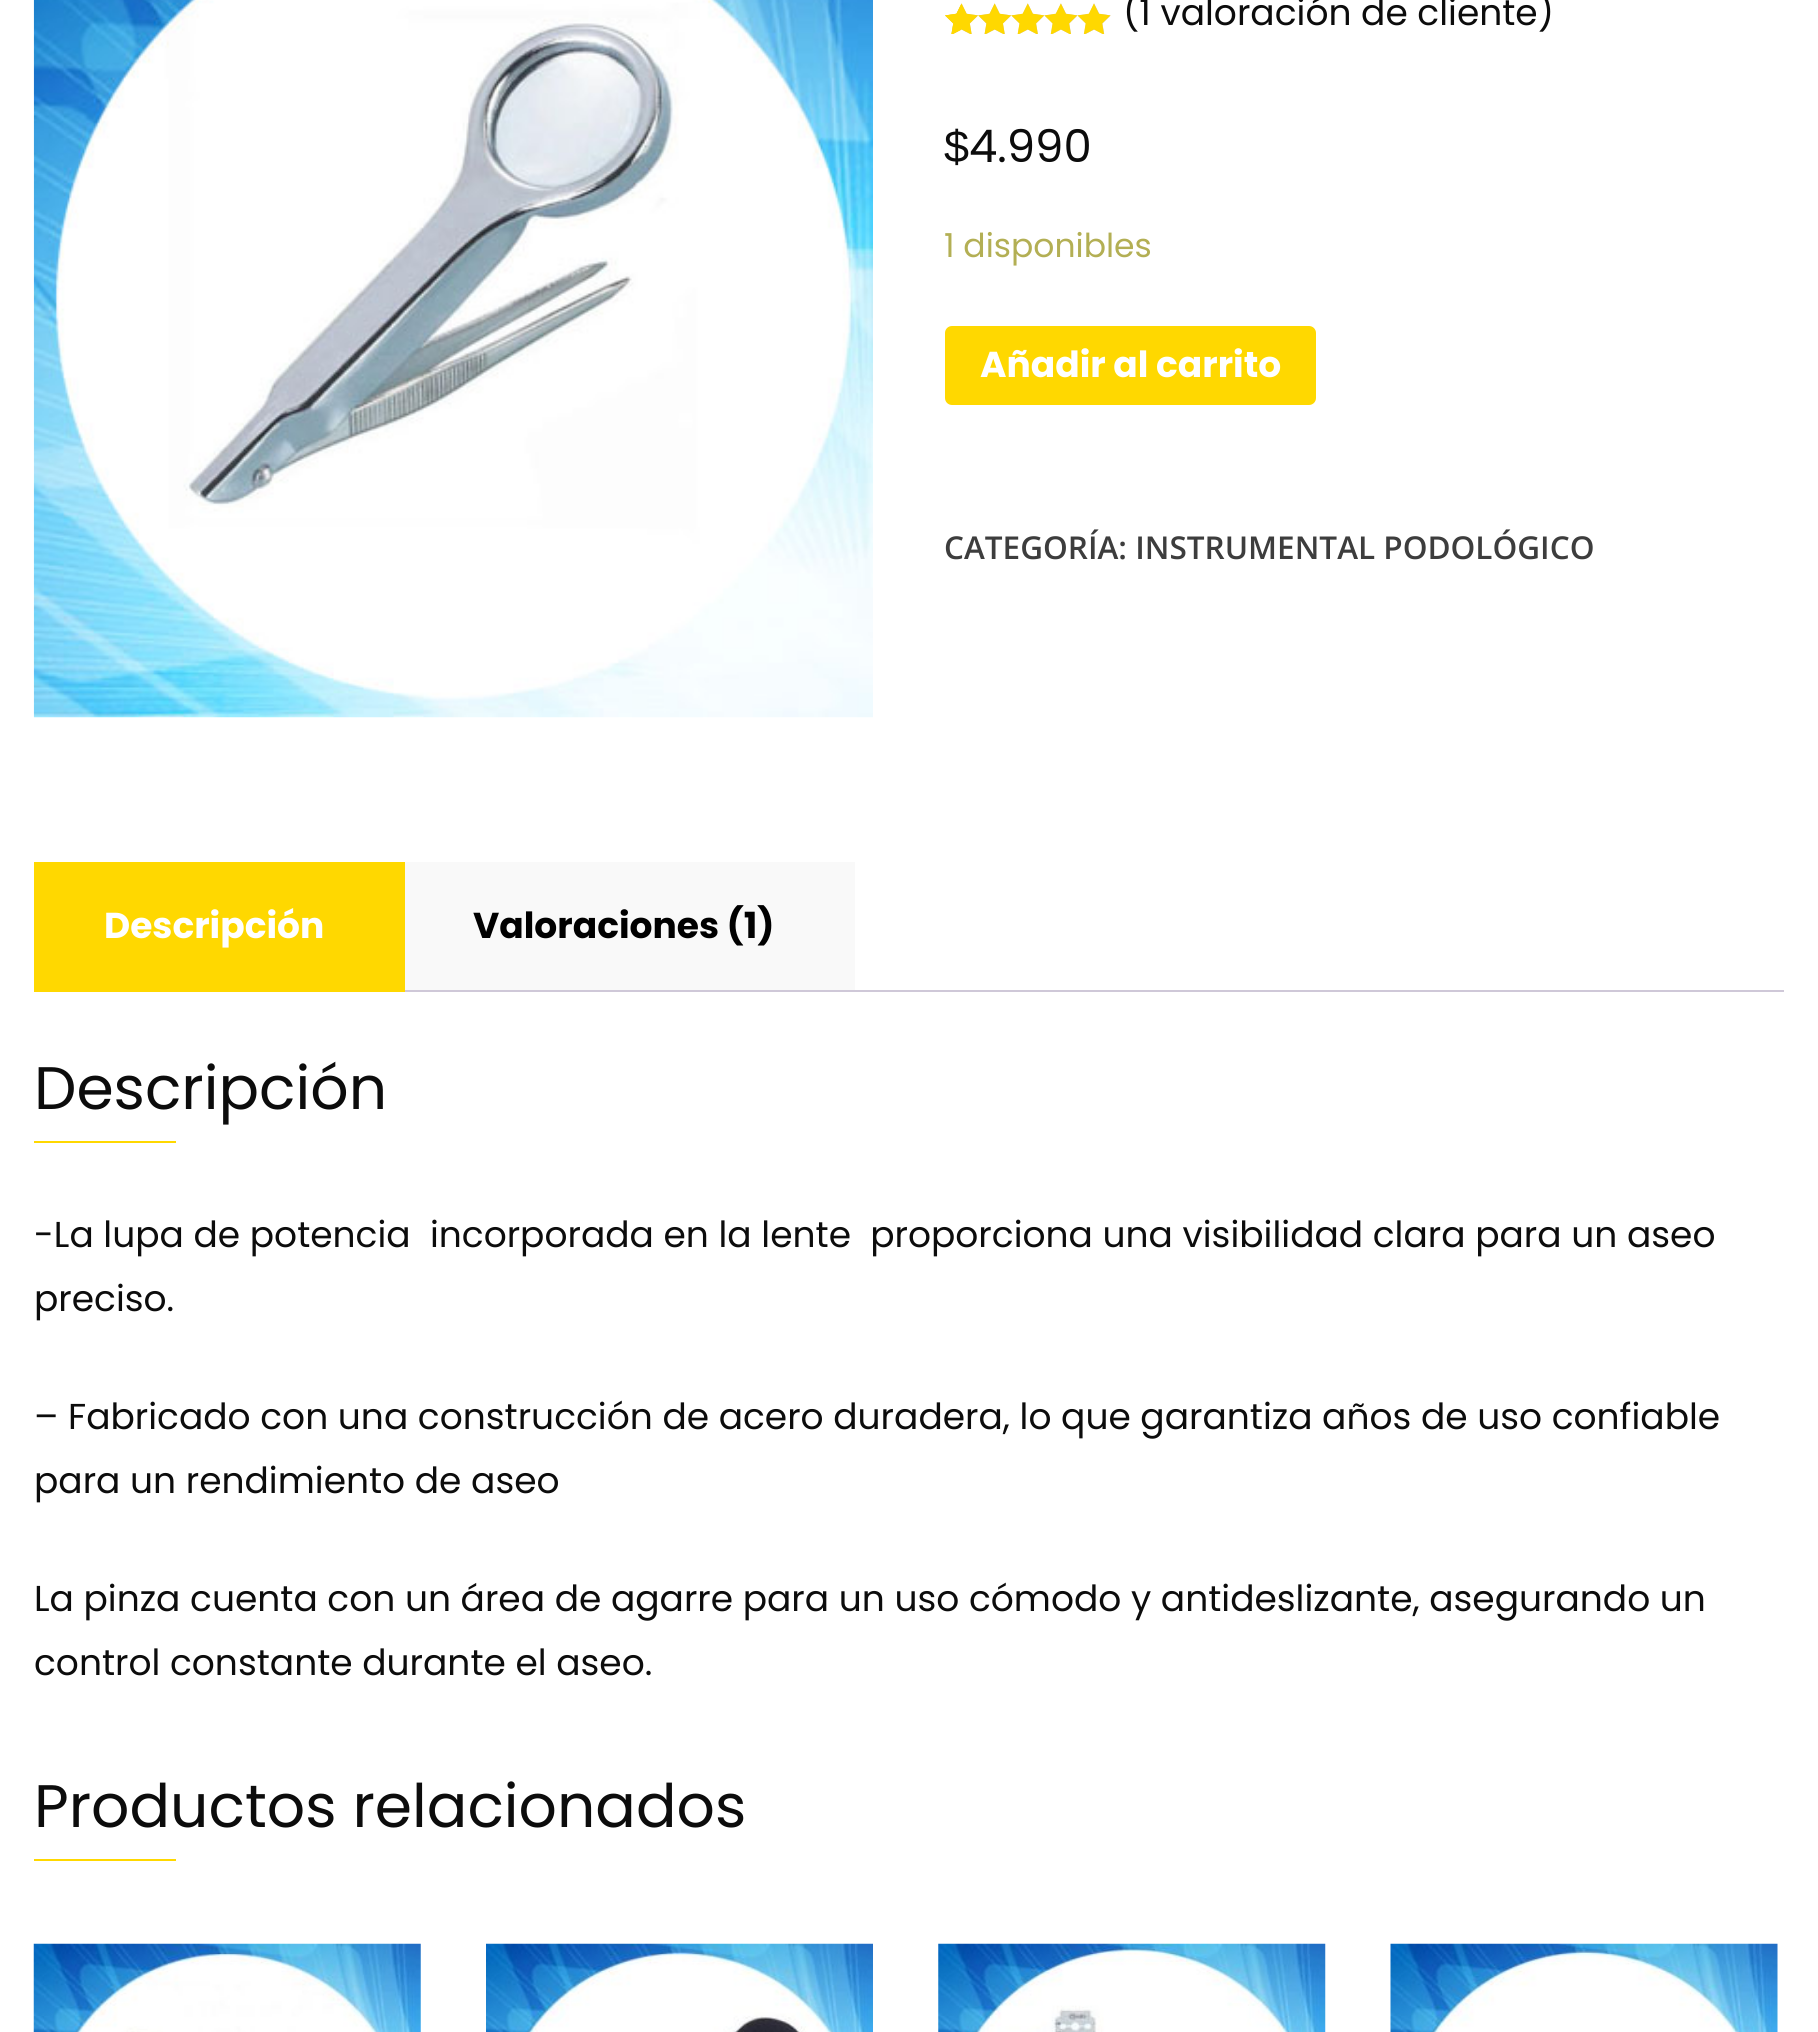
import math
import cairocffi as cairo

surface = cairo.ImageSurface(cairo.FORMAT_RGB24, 1818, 2032)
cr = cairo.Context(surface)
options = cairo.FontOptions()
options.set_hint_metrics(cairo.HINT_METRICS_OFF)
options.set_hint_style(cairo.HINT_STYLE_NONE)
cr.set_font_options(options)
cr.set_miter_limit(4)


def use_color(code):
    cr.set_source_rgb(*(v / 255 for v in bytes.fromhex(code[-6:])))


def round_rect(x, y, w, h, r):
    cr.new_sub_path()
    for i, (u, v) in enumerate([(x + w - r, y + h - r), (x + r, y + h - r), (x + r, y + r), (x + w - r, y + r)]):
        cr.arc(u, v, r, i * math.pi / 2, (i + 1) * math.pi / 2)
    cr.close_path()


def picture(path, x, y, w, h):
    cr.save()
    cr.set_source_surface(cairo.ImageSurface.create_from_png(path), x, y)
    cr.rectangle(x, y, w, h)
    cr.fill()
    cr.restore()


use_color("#ffffff")
cr.paint()
picture("img1.png", 33, 0, 840, 718)
picture("img2.png", 945, 3, 166, 31)
picture("img3.png", 945, 3, 166, 31)
picture("img4.png", 945, 4, 16, 30)
cr.select_font_face("Poppins")
cr.set_font_size(36)
use_color("#0c0c0c")
cr.move_to(1123, 25)
cr.show_text("(1 valoración de cliente)")
cr.select_font_face("Liberation Sans")
cr.set_font_size(45)
cr.move_to(944, 162)
cr.show_text("$")
cr.select_font_face("Poppins")
cr.move_to(969, 162)
cr.show_text("4.990")
cr.set_font_size(33)
use_color("#b3af54")
cr.move_to(944, 257)
cr.show_text("1 disponibles")
use_color("#ffd800")
round_rect(945, 326, 371, 79, 7)
cr.fill()
cr.select_font_face("Poppins", cairo.FONT_SLANT_NORMAL, cairo.FONT_WEIGHT_BOLD)
cr.set_font_size(36)
use_color("#ffffff")
cr.move_to(980, 377)
cr.show_text("Añadir al carrito")
cr.select_font_face("Open Sans SemiBold")
cr.set_font_size(31.5)
use_color("#3d3d3d")
cr.move_to(944, 559)
cr.show_text("CATEGORÍA: INSTRUMENTAL PODOLÓGICO")
use_color("#ffd800")
cr.rectangle(34, 862, 371, 130)
cr.fill()
cr.select_font_face("Poppins", cairo.FONT_SLANT_NORMAL, cairo.FONT_WEIGHT_BOLD)
cr.set_font_size(36)
use_color("#ffffff")
cr.move_to(104, 938)
cr.show_text("Descripción")
use_color("#f9f9f9")
cr.rectangle(405, 862, 450, 128)
cr.fill()
use_color("#000000")
cr.move_to(473, 938)
cr.show_text("Valoraciones (1)")
use_color("#cfc8d8")
cr.rectangle(405, 990, 1379, 2)
cr.fill()
cr.select_font_face("Poppins")
cr.set_font_size(60)
use_color("#0c0c0c")
cr.move_to(34, 1109)
cr.show_text("Descripción")
use_color("#ffd800")
cr.rectangle(34, 1141, 142, 2)
cr.fill()
cr.set_font_size(36)
use_color("#0c0c0c")
cr.move_to(34, 1247)
cr.show_text("-La lupa de potencia  incorporada en la lente  proporciona una visibilidad clara para un aseo")
cr.move_to(34, 1311)
cr.show_text("preciso.")
cr.move_to(34, 1429)
cr.show_text("– Fabricado con una construcción de acero duradera, lo que garantiza años de uso confiable")
cr.move_to(34, 1493)
cr.show_text("para un rendimiento de aseo")
cr.move_to(34, 1611)
cr.show_text("La pinza cuenta con un área de agarre para un uso cómodo y antideslizante, asegurando un")
cr.move_to(34, 1675)
cr.show_text("control constante durante el aseo.")
cr.set_font_size(60)
cr.move_to(34, 1827)
cr.show_text("Productos relacionados")
use_color("#ffd800")
cr.rectangle(34, 1859, 142, 2)
cr.fill()
picture("img5.png", 33, 1943, 388, 89)
picture("img6.png", 486, 1943, 387, 89)
picture("img7.png", 938, 1943, 388, 89)
picture("img8.png", 1390, 1943, 388, 89)
surface.write_to_png("result.png")
